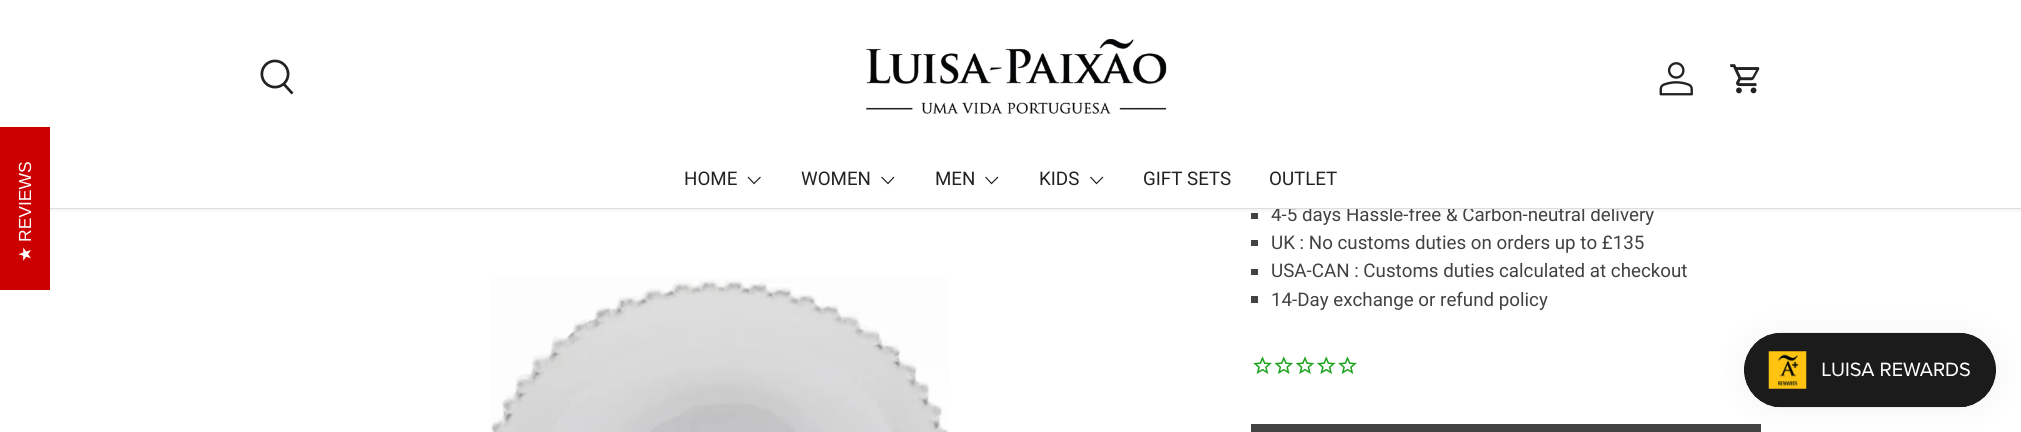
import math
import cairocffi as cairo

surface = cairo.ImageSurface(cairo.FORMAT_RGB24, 2021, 432)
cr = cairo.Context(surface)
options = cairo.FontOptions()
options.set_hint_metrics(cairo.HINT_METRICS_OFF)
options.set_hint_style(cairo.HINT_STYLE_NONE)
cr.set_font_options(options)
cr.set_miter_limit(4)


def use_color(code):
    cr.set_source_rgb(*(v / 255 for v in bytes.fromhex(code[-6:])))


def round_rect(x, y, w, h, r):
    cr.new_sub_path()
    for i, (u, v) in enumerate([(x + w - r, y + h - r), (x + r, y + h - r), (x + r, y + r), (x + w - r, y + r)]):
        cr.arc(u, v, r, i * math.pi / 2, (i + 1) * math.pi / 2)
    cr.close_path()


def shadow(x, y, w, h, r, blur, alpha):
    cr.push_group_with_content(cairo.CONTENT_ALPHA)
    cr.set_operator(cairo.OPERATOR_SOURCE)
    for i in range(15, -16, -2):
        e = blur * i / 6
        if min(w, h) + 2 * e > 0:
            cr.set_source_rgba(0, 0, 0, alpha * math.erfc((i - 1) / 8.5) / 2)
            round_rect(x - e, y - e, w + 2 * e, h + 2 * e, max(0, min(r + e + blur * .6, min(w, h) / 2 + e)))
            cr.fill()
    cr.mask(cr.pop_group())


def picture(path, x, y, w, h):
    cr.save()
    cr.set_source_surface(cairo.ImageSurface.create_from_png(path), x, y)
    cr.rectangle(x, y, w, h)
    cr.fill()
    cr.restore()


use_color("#ffffff")
cr.paint()
use_color("#424242")
cr.rectangle(1251, 213, 7, 6)
cr.fill()
use_color("#000000")
shadow(-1, -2, 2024, 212, 0, 2, 0.08)
cr.select_font_face("Roboto")
cr.set_font_size(18.75)
use_color("#424242")
cr.move_to(1271, 221)
cr.show_text("4-5 days Hassle-free & Carbon-neutral delivery")
use_color("#ffffff")
cr.rectangle(0, 0, 2021, 208)
cr.fill()
use_color("#cc0000")
cr.rectangle(0, 127, 50, 163)
cr.fill()
cr.select_font_face("Liberation Sans")
cr.set_font_size(17.5)
use_color("#ffffff")
cr.save()
cr.translate(31, 242)
cr.rotate(-90 * math.pi / 180)
cr.move_to(0, 0)
cr.show_text("REVIEWS")
cr.restore()
cr.select_font_face("DejaVu Sans")
cr.save()
cr.translate(31, 262)
cr.rotate(-90 * math.pi / 180)
cr.move_to(0, 0)
cr.show_text("★")
cr.restore()
picture("img1.png", 260, 59, 34, 36)
picture("img2.png", 866, 39, 301, 75)
picture("img3.png", 1659, 62, 34, 34)
picture("img4.png", 1730, 64, 30, 30)
cr.select_font_face("Roboto")
cr.set_font_size(18.75)
use_color("#222222")
cr.move_to(684, 185)
cr.show_text("HOME")
cr.new_path()
cr.move_to(760.5, 177)
cr.line_to(754, 183.5)
cr.line_to(748, 177)
cr.set_line_width(1.2)
cr.stroke()
cr.move_to(801, 185)
cr.show_text("WOMEN")
cr.new_path()
cr.move_to(894, 177)
cr.line_to(888, 183.5)
cr.line_to(881.5, 177)
cr.stroke()
cr.move_to(935, 185)
cr.show_text("MEN")
cr.new_path()
cr.move_to(998, 177)
cr.line_to(991.5, 183.5)
cr.line_to(985.5, 177)
cr.stroke()
cr.move_to(1039, 185)
cr.show_text("KIDS")
cr.new_path()
cr.move_to(1103, 177)
cr.line_to(1096.5, 183.5)
cr.line_to(1090.5, 177)
cr.stroke()
cr.move_to(1143, 185)
cr.show_text("GIFT SETS")
cr.move_to(1269, 185)
cr.show_text("OUTLET")
use_color("#dedede")
cr.rectangle(50, 208, 1971, 1)
cr.fill()
use_color("#424242")
cr.rectangle(1251, 240, 7, 6)
cr.fill()
cr.move_to(1271, 249)
cr.show_text("UK : No customs duties on orders up to £135")
cr.rectangle(1251, 269, 7, 6)
cr.fill()
cr.move_to(1271, 277)
cr.show_text("USA-CAN : Customs duties calculated at checkout")
cr.rectangle(1251, 296, 7, 7)
cr.fill()
cr.move_to(1271, 306)
cr.show_text("14-Day exchange or refund policy")
picture("img5.png", 1253, 356, 19, 18)
picture("img6.png", 1274, 356, 19, 18)
picture("img7.png", 1295, 356, 20, 18)
picture("img8.png", 1317, 356, 19, 18)
picture("img5.png", 1338, 356, 19, 18)
gradient = cairo.LinearGradient(270, 268, 1722, 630)
gradient.add_color_stop_rgba(0.6, 0.4, 0.4, 0.4, 1)
gradient.add_color_stop_rgba(0.6, 0.259, 0.259, 0.259, 1)
gradient.add_color_stop_rgba(1, 0.259, 0.259, 0.259, 1)
cr.set_source(gradient)
cr.rectangle(1251, 424, 510, 8)
cr.fill()
picture("img9.png", 490, 278, 459, 154)
use_color("#000000")
shadow(1744, 333, 252, 75, 37.5, 15.5, 0.05)
picture("img10.png", 1744, 332, 252, 76)
surface.write_to_png("result.png")
